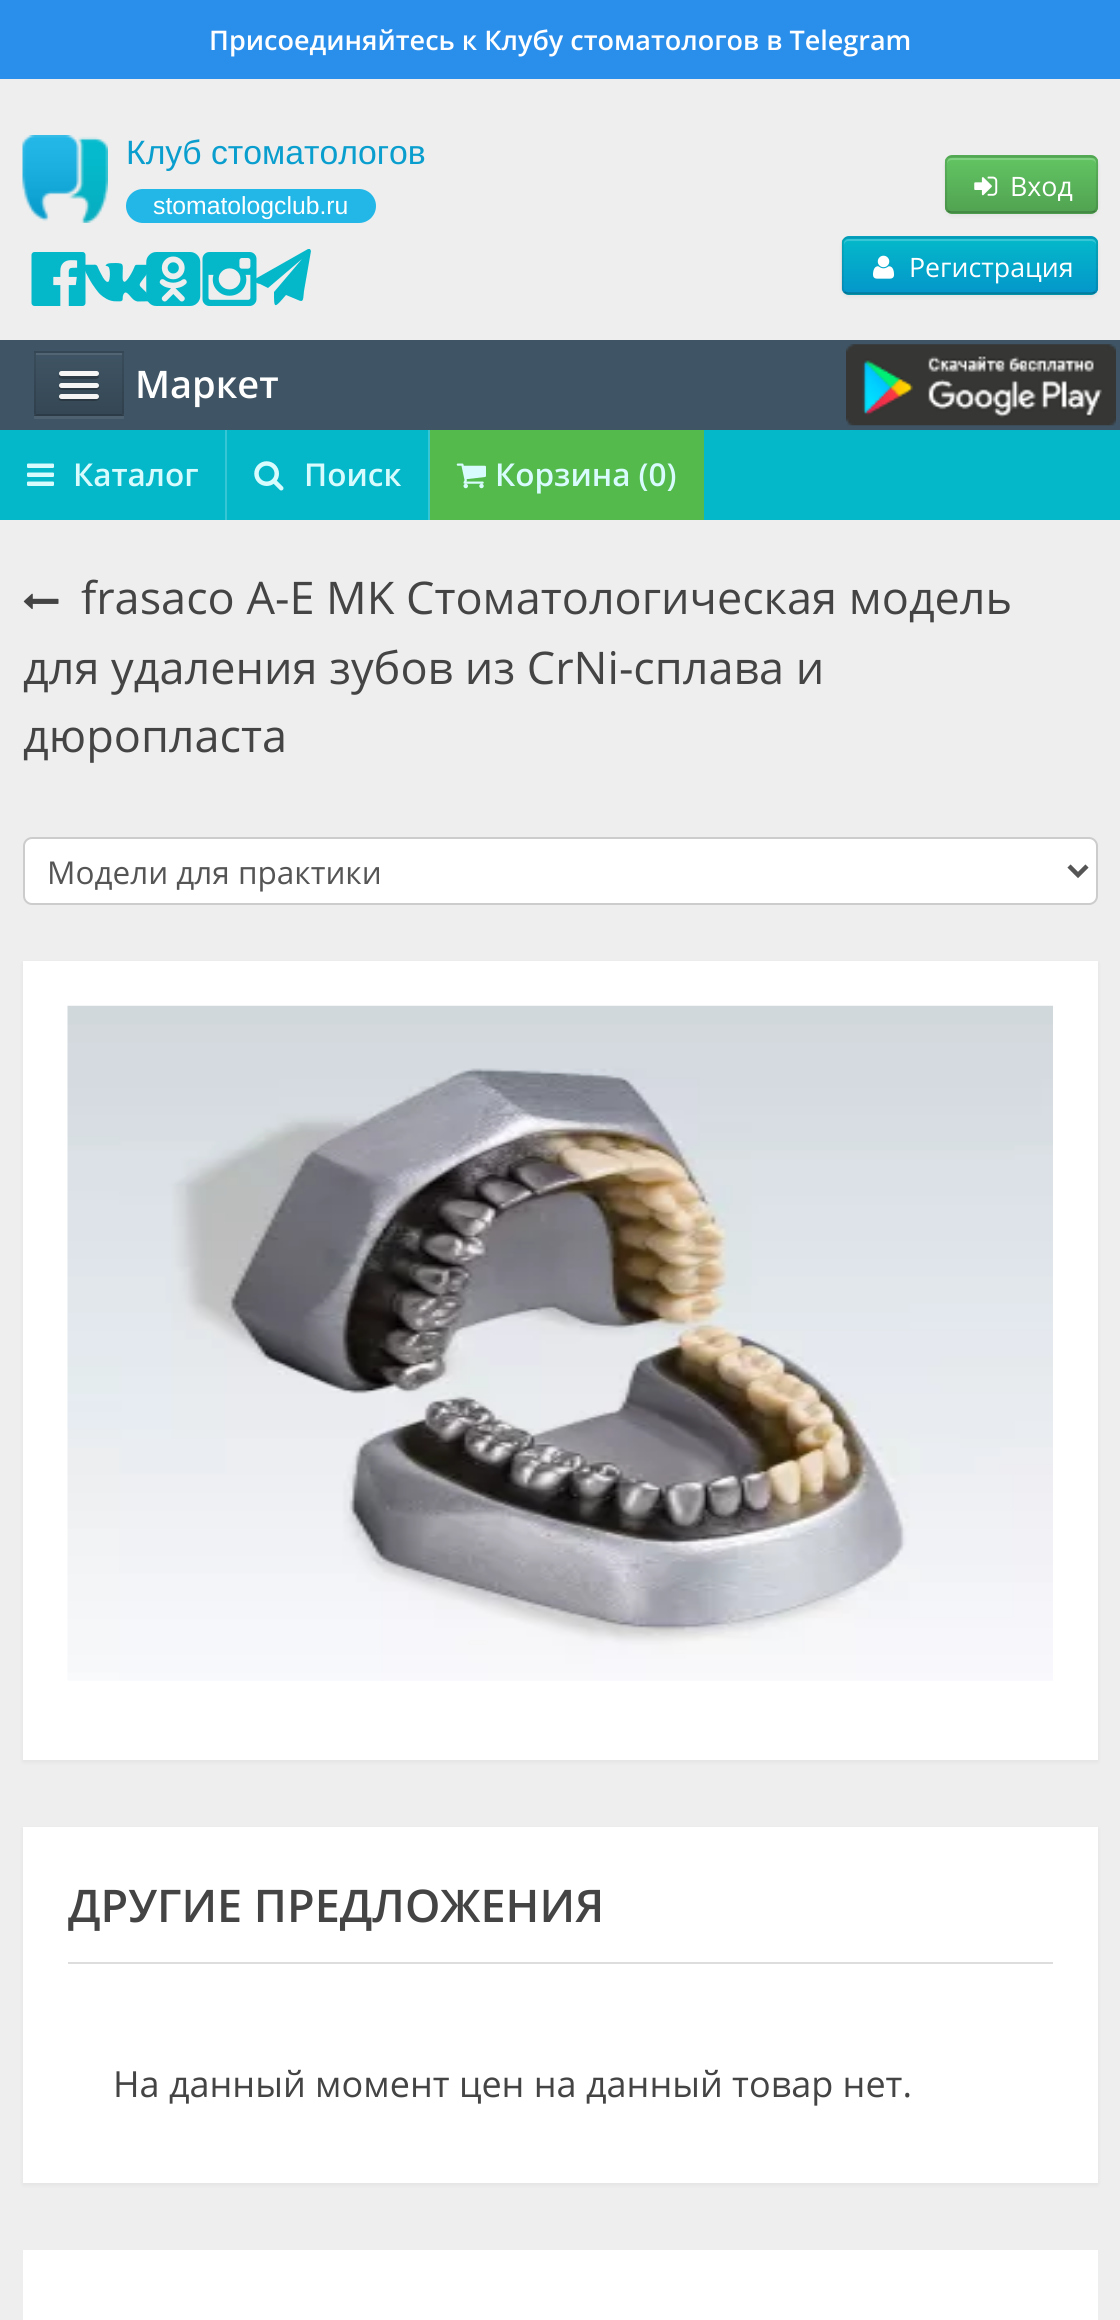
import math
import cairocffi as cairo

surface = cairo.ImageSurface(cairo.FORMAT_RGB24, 1120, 2320)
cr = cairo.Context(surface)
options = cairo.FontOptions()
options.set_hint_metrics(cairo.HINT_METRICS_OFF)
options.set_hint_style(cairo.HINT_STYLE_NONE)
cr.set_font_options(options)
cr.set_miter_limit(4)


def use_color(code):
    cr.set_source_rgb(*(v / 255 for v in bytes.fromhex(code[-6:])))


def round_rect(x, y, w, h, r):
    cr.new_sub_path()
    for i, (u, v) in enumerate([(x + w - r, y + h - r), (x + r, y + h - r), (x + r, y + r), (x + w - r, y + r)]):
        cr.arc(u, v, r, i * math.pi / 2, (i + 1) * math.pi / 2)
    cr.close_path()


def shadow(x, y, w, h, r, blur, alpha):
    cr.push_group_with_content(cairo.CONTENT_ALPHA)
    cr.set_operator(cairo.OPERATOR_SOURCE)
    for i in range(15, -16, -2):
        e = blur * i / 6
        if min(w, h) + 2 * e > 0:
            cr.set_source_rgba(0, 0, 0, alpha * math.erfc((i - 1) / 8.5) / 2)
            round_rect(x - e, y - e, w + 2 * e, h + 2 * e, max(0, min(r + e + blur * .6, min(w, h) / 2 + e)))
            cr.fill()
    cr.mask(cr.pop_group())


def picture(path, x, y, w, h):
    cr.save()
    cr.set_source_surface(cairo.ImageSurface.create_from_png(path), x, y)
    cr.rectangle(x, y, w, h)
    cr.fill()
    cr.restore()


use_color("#eeeeee")
cr.paint()
use_color("#2a8eeb")
cr.rectangle(0, 0, 1120, 79)
cr.fill()
cr.select_font_face("Open Sans SemiBold")
cr.set_font_size(27)
use_color("#ffffff")
cr.move_to(209, 50)
cr.show_text("Присоединяйтесь к Клубу стоматологов в Telegram")
picture("img1.png", 22, 135, 86, 88)
cr.select_font_face("Liberation Sans")
cr.set_font_size(33.75)
use_color("#099ece")
cr.move_to(126, 164)
cr.show_text("Клуб стоматологов")
use_color("#23b7e7")
round_rect(126, 189, 250, 34, 17)
cr.fill()
cr.set_font_size(24.75)
use_color("#ffffff")
cr.move_to(153, 214)
cr.show_text("stomatologclub.ru")
use_color("#000000")
shadow(945, 158, 153, 58, 7, 2, 0.05)
use_color("#5bb75b")
round_rect(945, 155, 153, 59, 7)
cr.fill()
cr.save()
round_rect(945, 155, 153, 59, 7)
cr.clip()
gradient = cairo.LinearGradient(1022, 158, 1022, 212)
gradient.add_color_stop_rgba(0, 0.384, 0.769, 0.384, 1)
gradient.add_color_stop_rgba(1, 0.318, 0.639, 0.318, 1)
cr.set_source(gradient)
cr.rectangle(945, 158, 153, 54)
cr.fill()
cr.restore()
use_color("#81cf81")
cr.new_path()
cr.move_to(952, 160)
cr.line_to(1091, 160)
cr.curve_to(1094, 160, 1096, 162, 1096, 164)
cr.line_to(1096, 163)
cr.curve_to(1096, 160, 1094, 158, 1091, 158)
cr.line_to(952, 158)
cr.curve_to(949, 158, 947, 160, 947, 163)
cr.line_to(947, 164)
cr.curve_to(947, 162, 949, 160, 952, 160)
cr.close_path()
cr.fill()
cr.new_path()
cr.move_to(1095, 211)
cr.curve_to(1094, 212, 1092.5, 212.5, 1091, 212.5)
cr.line_to(952, 212.5)
cr.curve_to(950.5, 212.5, 949, 212, 948, 211)
cr.set_source_rgba(0, 0, 0, 0.25)
cr.set_line_width(2.2)
cr.stroke()
cr.new_path()
cr.move_to(948, 211)
cr.curve_to(945, 208, 946, 202.5, 946, 199.5)
cr.line_to(946, 184.5)
cr.curve_to(946, 151.5, 940.5, 156.5, 975, 156.5)
cr.line_to(1068, 156.5)
cr.curve_to(1102.5, 156.5, 1097, 151.5, 1097, 184.5)
cr.line_to(1097, 199.5)
cr.curve_to(1097, 202.5, 1098, 208, 1095, 211)
cr.set_source_rgba(0, 0, 0, 0.1)
cr.stroke()
picture("img2.png", 974, 176, 24, 20)
cr.select_font_face("Open Sans")
cr.set_font_size(26.75)
use_color("#ffffff")
cr.move_to(1010, 196)
cr.show_text("Вход")
use_color("#000000")
shadow(842, 239, 256, 58, 7, 2, 0.05)
use_color("#04abca")
round_rect(842, 236, 256, 59, 7)
cr.fill()
cr.save()
round_rect(842, 236, 256, 59, 7)
cr.clip()
gradient = cairo.LinearGradient(970, 239, 970, 293)
gradient.add_color_stop_rgba(0, 0.016, 0.722, 0.792, 1)
gradient.add_color_stop_rgba(1, 0.016, 0.592, 0.792, 1)
cr.set_source(gradient)
cr.rectangle(842, 239, 256, 54)
cr.fill()
cr.restore()
use_color("#36c6d5")
cr.new_path()
cr.move_to(848, 241)
cr.line_to(1091, 241)
cr.curve_to(1094, 241, 1096, 243, 1096, 245)
cr.line_to(1096, 244)
cr.curve_to(1096, 241, 1094, 239, 1091, 239)
cr.line_to(849, 239)
cr.curve_to(846, 239, 844, 241, 844, 244)
cr.line_to(844, 245)
cr.curve_to(844, 243, 846, 241, 848, 241)
cr.close_path()
cr.fill()
cr.new_path()
cr.move_to(1095, 292)
cr.curve_to(1094, 293, 1092.5, 293.5, 1091, 293.5)
cr.line_to(848, 293.5)
cr.curve_to(847, 293.5, 845.5, 293, 844.5, 292)
cr.set_source_rgba(0, 0, 0, 0.25)
cr.stroke()
cr.new_path()
cr.move_to(844.5, 292)
cr.curve_to(843, 291, 842.5, 289.5, 842.5, 288)
cr.line_to(842.5, 243)
cr.curve_to(842.5, 241.5, 843, 240, 844.5, 239)
cr.curve_to(845.5, 238, 847, 237.5, 848, 237.5)
cr.line_to(1091, 237.5)
cr.curve_to(1092.5, 237.5, 1094, 238, 1095, 239)
cr.curve_to(1096.5, 240, 1097, 241.5, 1097, 243)
cr.line_to(1097, 288)
cr.curve_to(1097, 289.5, 1096.5, 291, 1095, 292)
cr.set_source_rgba(0, 0, 0, 0.1)
cr.stroke()
picture("img3.png", 873, 255, 22, 24)
use_color("#ffffff")
cr.move_to(909, 277)
cr.show_text("Регистрация")
picture("img4.png", 31, 252, 55, 54)
picture("img5.png", 85, 263, 64, 39)
picture("img6.png", 146, 252, 55, 54)
picture("img7.png", 202, 252, 55, 54)
use_color("#04b8ca")
cr.new_path()
cr.move_to(310, 249)
cr.line_to(311, 251)
cr.line_to(304, 291)
cr.curve_to(303, 299, 304, 303, 298, 300)
cr.line_to(286, 295)
cr.curve_to(274, 309, 274, 309, 274, 292)
cr.line_to(302, 259)
cr.line_to(268, 288)
cr.line_to(260, 284)
cr.curve_to(259, 284, 252, 282, 255, 279)
cr.line_to(308, 249)
cr.close_path()
cr.fill()
use_color("#3f5464")
cr.rectangle(0, 340, 1120, 90)
cr.fill()
use_color("#4d6170")
cr.new_path()
cr.move_to(34, 416)
cr.line_to(34, 419)
cr.line_to(124, 419)
cr.line_to(124, 353)
cr.line_to(124, 416)
cr.close_path()
cr.fill()
use_color("#3b4f5e")
cr.rectangle(34, 351, 90, 65)
cr.fill()
gradient = cairo.LinearGradient(79, 353, 79, 414)
gradient.add_color_stop_rgba(0, 0.247, 0.329, 0.392, 1)
gradient.add_color_stop_rgba(1, 0.208, 0.278, 0.329, 1)
cr.set_source(gradient)
cr.rectangle(34, 353, 90, 61)
cr.fill()
use_color("#526574")
cr.rectangle(36, 353, 86, 2)
cr.fill()
use_color("#354755")
cr.new_path()
cr.move_to(34, 351)
cr.line_to(124, 351)
cr.line_to(122, 353)
cr.line_to(36, 353)
cr.close_path()
cr.fill()
cr.set_source_rgba(0, 0, 0, 0.1)
cr.new_path()
cr.move_to(124, 351)
cr.line_to(124, 416)
cr.line_to(122, 414)
cr.line_to(122, 353)
cr.close_path()
cr.fill()
cr.set_source_rgba(0, 0, 0, 0.25)
cr.new_path()
cr.move_to(124, 416)
cr.line_to(34, 416)
cr.line_to(36, 414)
cr.line_to(122, 414)
cr.close_path()
cr.fill()
cr.set_source_rgba(0, 0, 0, 0.1)
cr.new_path()
cr.move_to(34, 416)
cr.line_to(34, 351)
cr.line_to(36, 353)
cr.line_to(36, 414)
cr.close_path()
cr.fill()
use_color("#2c3b46")
cr.new_path()
cr.move_to(59, 375)
cr.curve_to(57, 380, 67, 379, 67, 379)
cr.line_to(91, 379)
cr.curve_to(91, 379, 102, 380, 98, 375)
cr.line_to(97, 376)
cr.curve_to(94, 376, 61, 376, 59, 375)
cr.close_path()
cr.fill()
use_color("#f5f5f5")
round_rect(59, 371, 40, 5, 2.5)
cr.fill()
use_color("#2b3944")
cr.new_path()
cr.move_to(59, 386)
cr.curve_to(57, 391, 66, 390, 67, 390)
cr.line_to(91, 390)
cr.curve_to(91, 390, 102, 391, 99, 386)
cr.line_to(97, 387)
cr.curve_to(93, 387, 61, 388, 59, 386)
cr.close_path()
cr.fill()
use_color("#f5f5f5")
round_rect(59, 383, 40, 5, 2.5)
cr.fill()
use_color("#293842")
cr.new_path()
cr.move_to(59, 398)
cr.curve_to(57, 402, 66, 401, 67, 401)
cr.line_to(91, 401)
cr.curve_to(91, 401, 101, 402, 99, 397)
cr.line_to(97, 398)
cr.curve_to(93, 399, 60, 399, 59, 398)
cr.close_path()
cr.fill()
use_color("#f5f5f5")
round_rect(59, 394, 40, 5, 2.5)
cr.fill()
cr.select_font_face("Open Sans SemiBold")
cr.set_font_size(38)
use_color("#ffffff")
cr.move_to(135, 398)
cr.show_text("Маркет")
picture("img8.png", 846, 344, 270, 82)
use_color("#04b8ca")
cr.rectangle(0, 430, 1120, 90)
cr.fill()
use_color("#37c6d6")
cr.rectangle(225, 430, 2, 90)
cr.fill()
picture("img9.png", 27, 463, 27, 23)
cr.set_font_size(31.5)
use_color("#d8fbfd")
cr.move_to(73, 486)
cr.show_text("Каталог")
use_color("#37c6d6")
cr.rectangle(428, 430, 2, 90)
cr.fill()
picture("img10.png", 254, 461, 30, 30)
use_color("#d8fbfd")
cr.move_to(304, 486)
cr.show_text("Поиск")
use_color("#54ba4c")
cr.rectangle(430, 430, 274, 90)
cr.fill()
picture("img11.png", 456, 463, 30, 26)
use_color("#d8fbfd")
cr.move_to(495, 486)
cr.show_text("Корзина (0)")
picture("img12.png", 23, 593, 36, 17)
cr.select_font_face("Open Sans")
cr.set_font_size(45)
use_color("#444444")
cr.move_to(81, 614)
cr.show_text("frasaco A-E MK Стоматологическая модель")
cr.move_to(23, 684)
cr.show_text("для удаления зубов из CrNi-сплава и")
cr.move_to(23, 752)
cr.show_text("дюропласта")
use_color("#ffffff")
round_rect(24, 838, 1073, 66, 8)
cr.fill_preserve()
use_color("#cccccc")
cr.set_line_width(2)
cr.stroke()
cr.new_path()
cr.move_to(1069, 866)
cr.line_to(1078, 875)
cr.line_to(1087, 866)
use_color("#555555")
cr.set_line_width(4.5)
cr.stroke()
cr.set_font_size(31.5)
cr.move_to(47, 884)
cr.show_text("Модели для практики")
use_color("#000000")
shadow(23, 963, 1075, 799, 0, 2, 0.05)
use_color("#ffffff")
cr.rectangle(23, 961, 1075, 799)
cr.fill()
picture("img13.png", 67, 1005, 986, 676)
use_color("#000000")
shadow(23, 1829, 1075, 356, 0, 2, 0.05)
use_color("#ffffff")
cr.rectangle(23, 1827, 1075, 356)
cr.fill()
use_color("#dddddd")
cr.rectangle(68, 1962, 985, 2)
cr.fill()
cr.save()
cr.rectangle(68, 1872, 985, 90)
cr.clip()
cr.select_font_face("Open Sans SemiBold")
cr.set_font_size(45)
use_color("#444444")
cr.move_to(68, 1922)
cr.show_text("ДРУГИЕ ПРЕДЛОЖЕНИЯ")
cr.restore()
cr.set_font_size(36)
use_color("#444444")
cr.move_to(113, 2097)
cr.show_text("На данный момент цен на данный товар нет.")
use_color("#ffffff")
cr.rectangle(23, 2250, 1075, 70)
cr.fill()
surface.write_to_png("result.png")
